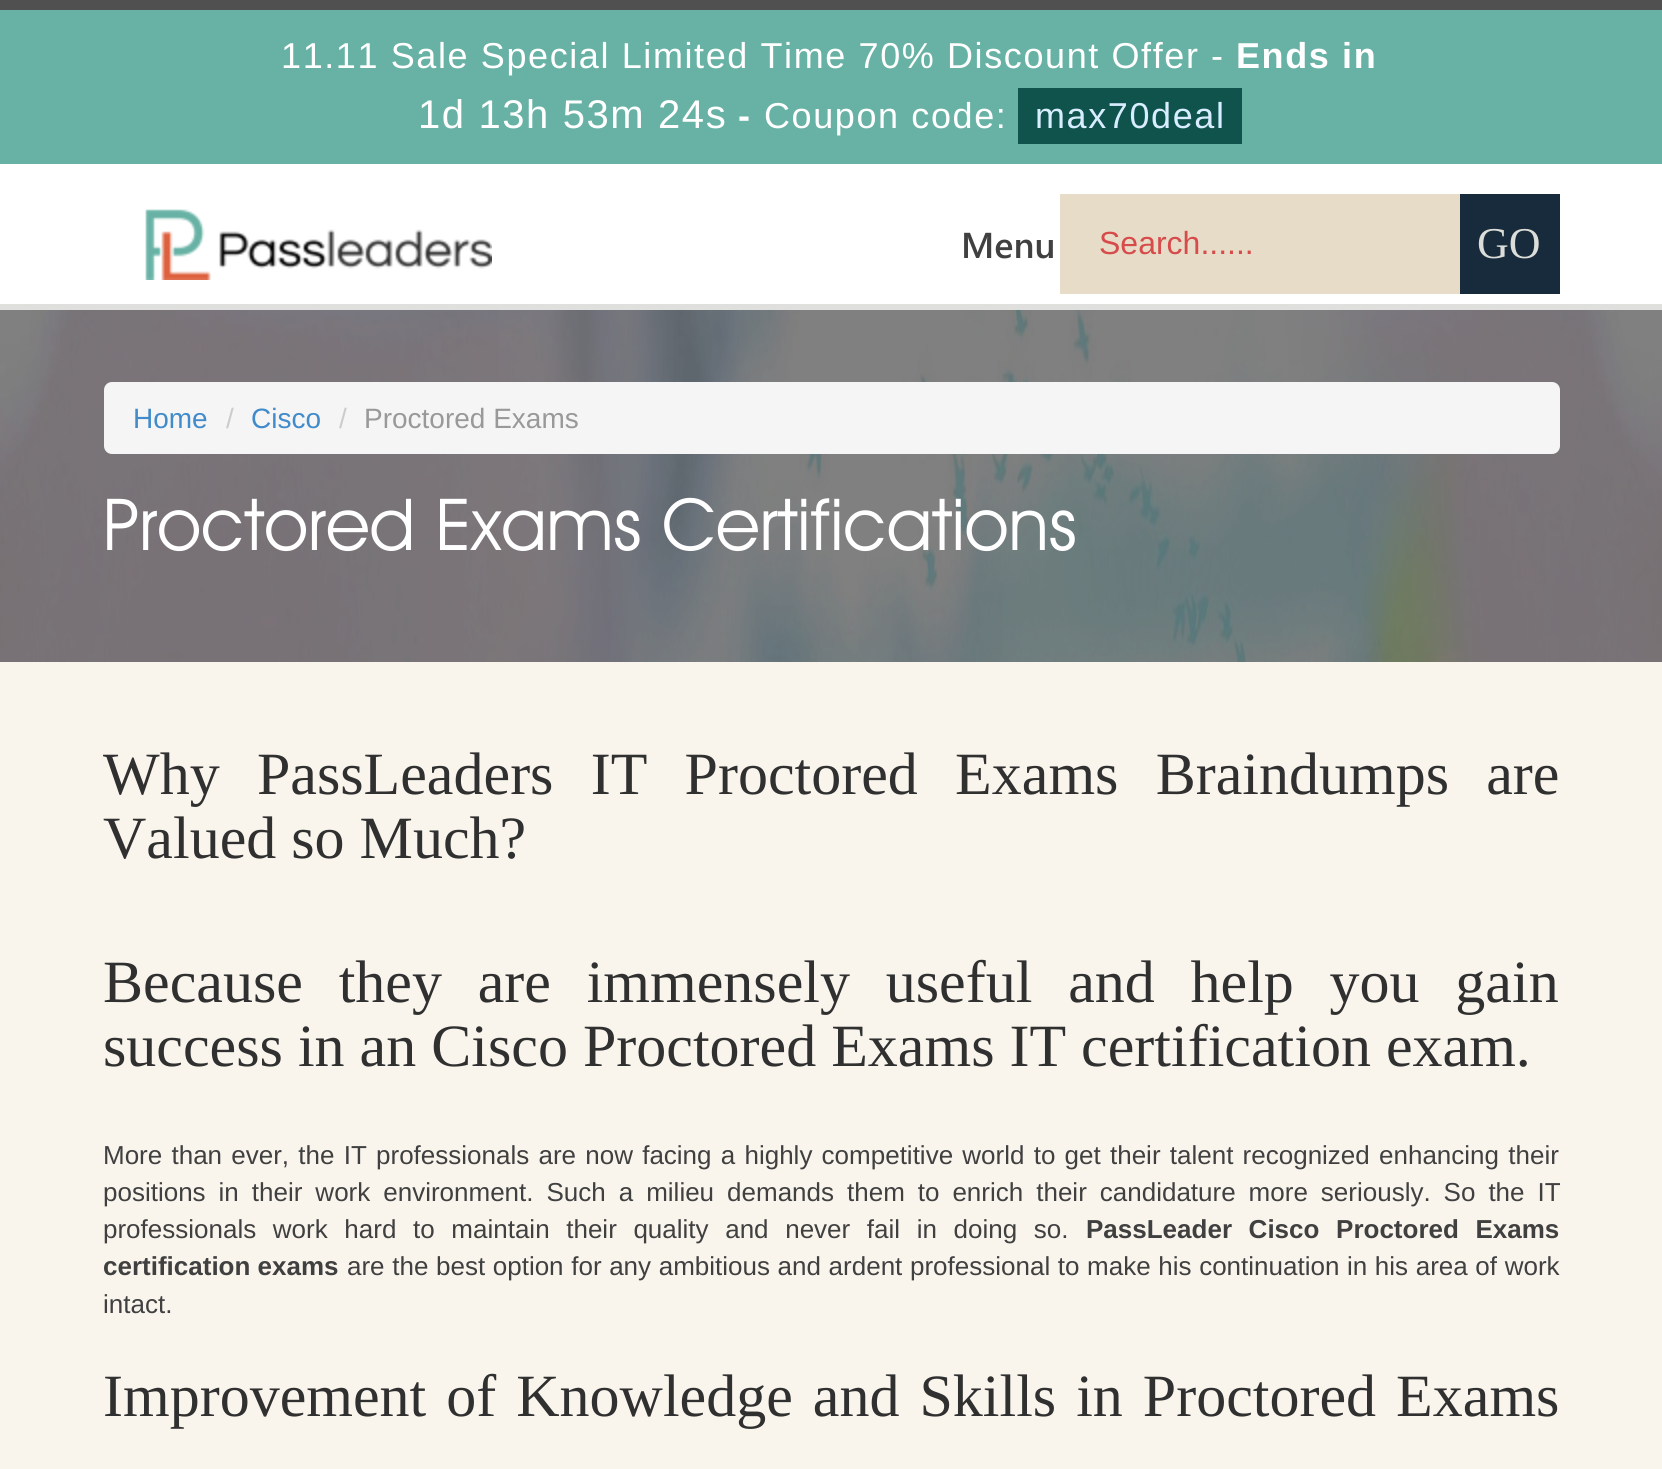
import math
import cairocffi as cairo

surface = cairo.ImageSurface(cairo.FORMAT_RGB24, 1662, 1469)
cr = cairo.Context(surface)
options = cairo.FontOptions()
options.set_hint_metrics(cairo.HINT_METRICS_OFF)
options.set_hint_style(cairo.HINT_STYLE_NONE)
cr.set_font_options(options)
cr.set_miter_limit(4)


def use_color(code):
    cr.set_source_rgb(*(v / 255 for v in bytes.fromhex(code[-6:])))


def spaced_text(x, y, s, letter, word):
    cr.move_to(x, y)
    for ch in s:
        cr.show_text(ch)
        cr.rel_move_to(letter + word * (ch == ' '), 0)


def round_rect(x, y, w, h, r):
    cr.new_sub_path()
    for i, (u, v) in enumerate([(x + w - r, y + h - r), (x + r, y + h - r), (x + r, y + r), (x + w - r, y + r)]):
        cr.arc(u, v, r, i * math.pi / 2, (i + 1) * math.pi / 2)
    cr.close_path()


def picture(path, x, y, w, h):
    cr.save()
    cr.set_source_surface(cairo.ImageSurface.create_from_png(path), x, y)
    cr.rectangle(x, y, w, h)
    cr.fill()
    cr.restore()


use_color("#ffffff")
cr.paint()
use_color("#505050")
cr.rectangle(0, 0, 1662, 10)
cr.fill()
use_color("#68b2a5")
cr.rectangle(0, 10, 1662, 154)
cr.fill()
cr.select_font_face("Liberation Sans")
cr.set_font_size(36)
use_color("#ffffff")
spaced_text(281, 68, "11.11 Sale Special Limited Time 70% Discount Offer -", 1.6, 0)
cr.select_font_face("Liberation Sans", cairo.FONT_SLANT_NORMAL, cairo.FONT_WEIGHT_BOLD)
spaced_text(1236, 68, "Ends in", 1.6, 0)
cr.select_font_face("Liberation Sans")
cr.set_font_size(40)
spaced_text(418, 128, "1d 13h 53m 24s", 1.6, 0)
cr.select_font_face("Liberation Sans", cairo.FONT_SLANT_NORMAL, cairo.FONT_WEIGHT_BOLD)
cr.set_font_size(36)
spaced_text(738, 128, "-", 1.6, 0)
cr.select_font_face("Liberation Sans")
spaced_text(764, 128, "Coupon code:", 1.6, 0)
use_color("#0f534c")
cr.rectangle(1018, 88, 224, 56)
cr.fill()
use_color("#d8eeff")
spaced_text(1035, 128, "max70deal", 1.6, 0)
use_color("#dfdfdd")
cr.rectangle(0, 304, 1662, 6)
cr.fill()
picture("img1.png", 145, 209, 347, 71)
cr.select_font_face("Segoe UI SemiBold")
use_color("#404040")
cr.move_to(961, 258)
cr.show_text("Menu")
use_color("#e7dcc7")
cr.rectangle(1060, 194, 400, 100)
cr.fill()
cr.select_font_face("Liberation Sans")
cr.set_font_size(32)
use_color("#d74b4b")
cr.move_to(1099, 254)
cr.show_text("Search......")
use_color("#172b3c")
cr.rectangle(1460, 194, 100, 100)
cr.fill()
cr.select_font_face("Liberation Serif")
cr.set_font_size(44)
use_color("#dcddd8")
cr.move_to(1477, 258)
cr.show_text("GO")
picture("img2.png", 0, 310, 1662, 352)
use_color("#f5f5f5")
round_rect(104, 382, 1456, 72, 8)
cr.fill()
cr.select_font_face("Liberation Sans")
cr.set_font_size(28)
use_color("#428bca")
cr.move_to(133, 428)
cr.show_text("Home")
use_color("#cccccc")
cr.move_to(226, 428)
cr.show_text("/")
use_color("#428bca")
cr.move_to(251, 428)
cr.show_text("Cisco")
use_color("#cccccc")
cr.move_to(339, 428)
cr.show_text("/")
use_color("#999999")
cr.move_to(364, 428)
cr.show_text("Proctored Exams")
cr.select_font_face("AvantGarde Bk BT")
cr.set_font_size(72)
use_color("#ffffff")
cr.move_to(103, 550)
cr.show_text("Proctored Exams Certifications")
use_color("#f9f5ed")
cr.rectangle(0, 662, 1662, 807)
cr.fill()
cr.select_font_face("Liberation Serif")
cr.set_font_size(60)
use_color("#303030")
spaced_text(103, 794, "Why PassLeaders IT Proctored Exams Braindumps are", 0, 22.25)
cr.move_to(103, 858)
cr.show_text("Valued so Much?")
spaced_text(103, 1002, "Because they are immensely useful and help you gain", 0, 20.75)
cr.move_to(103, 1066)
cr.show_text("success in an Cisco Proctored Exams IT certification exam.")
cr.select_font_face("Liberation Sans")
cr.set_font_size(26)
use_color("#404040")
spaced_text(103, 1164, "More than ever, the IT professionals are now facing a highly competitive world to get their talent recognized enhancing their", 0, 2)
spaced_text(103, 1201, "positions in their work environment. Such a milieu demands them to enrich their candidature more seriously. So the IT", 0, 5.75)
spaced_text(103, 1238, "professionals work hard to maintain their quality and never fail in doing so.", 0, 9.4)
cr.select_font_face("Liberation Sans", cairo.FONT_SLANT_NORMAL, cairo.FONT_WEIGHT_BOLD)
spaced_text(1086, 1238, "PassLeader Cisco Proctored Exams", 0, 9.4)
cr.move_to(103, 1275)
cr.show_text("certification exams")
cr.select_font_face("Liberation Sans")
spaced_text(347, 1275, "are the best option for any ambitious and ardent professional to make his continuation in his area of work", 0, 0.4)
cr.move_to(103, 1313)
cr.show_text("intact.")
cr.select_font_face("Liberation Serif")
cr.set_font_size(60)
use_color("#303030")
spaced_text(103, 1416, "Improvement of Knowledge and Skills in Proctored Exams", 0, 5)
surface.write_to_png("result.png")
